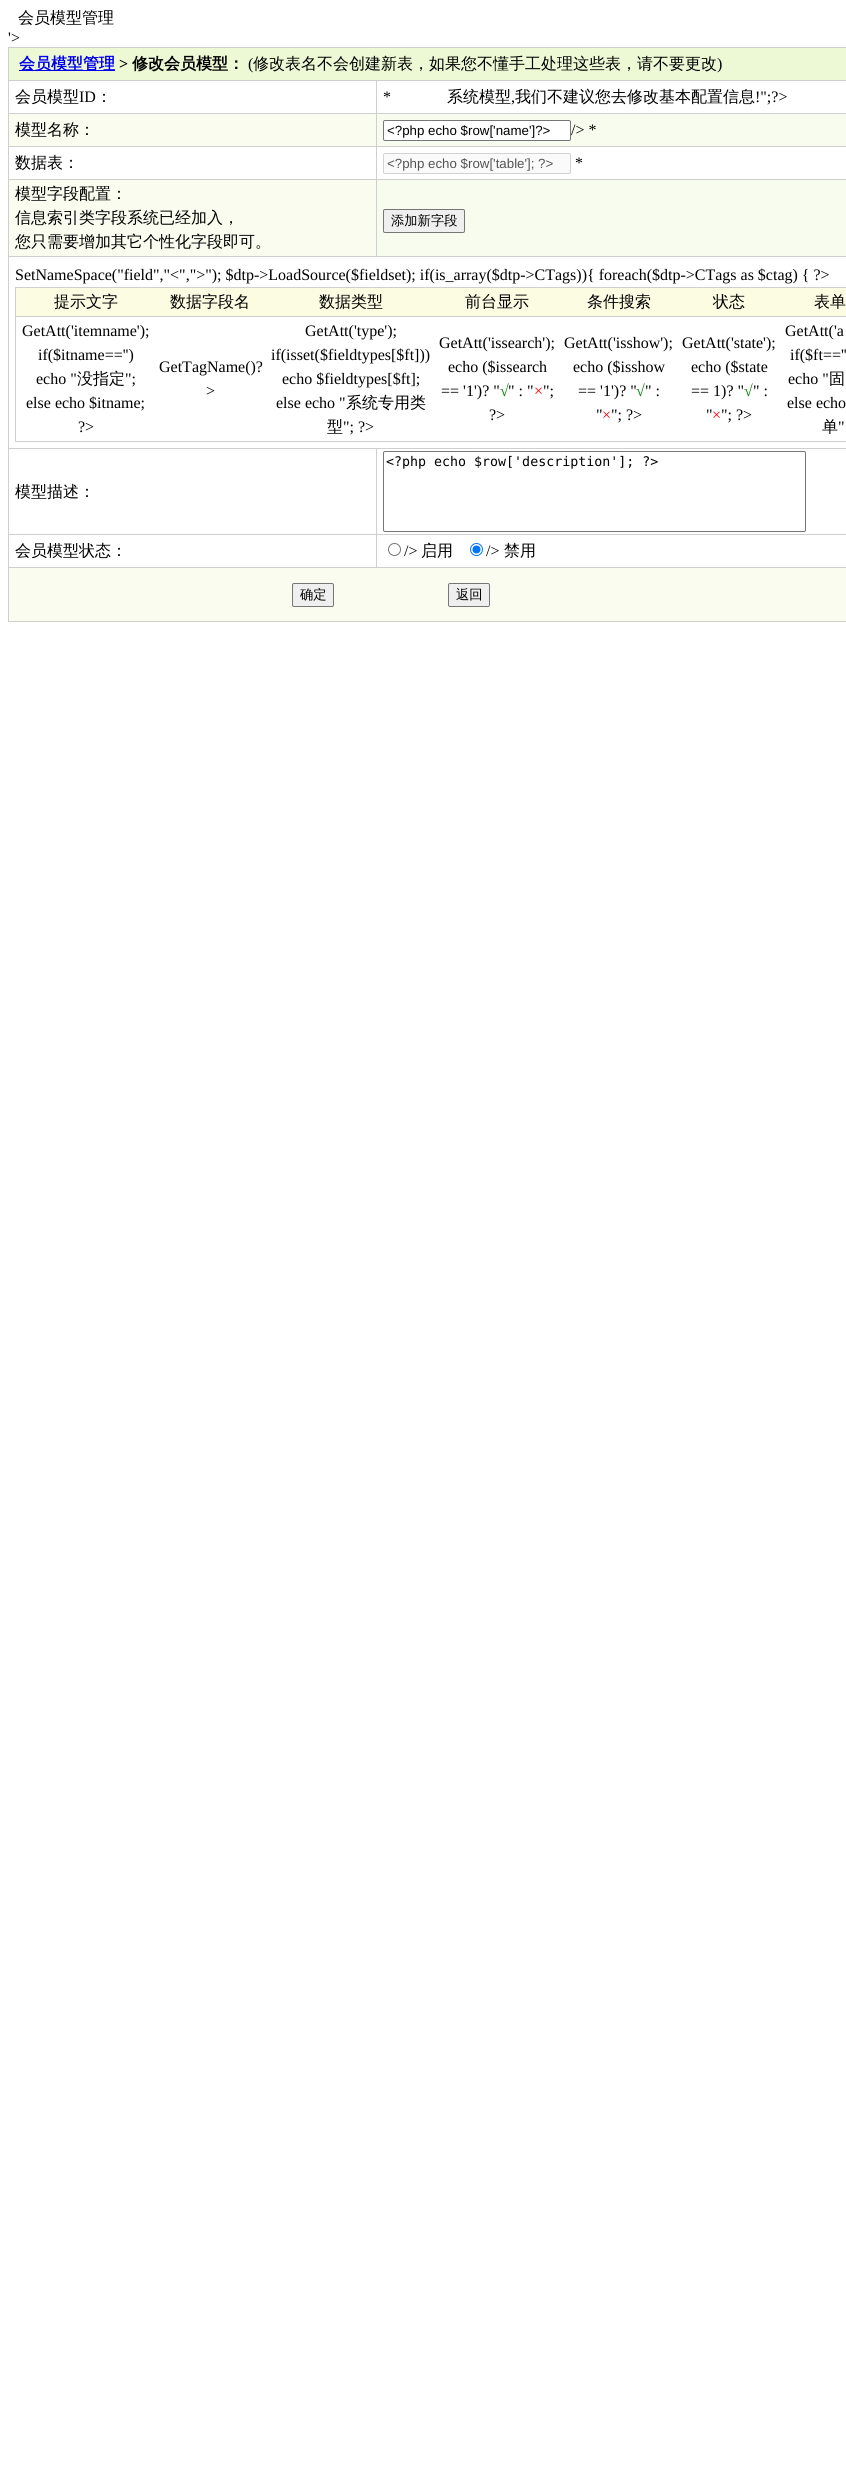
import math
import cairocffi as cairo

surface = cairo.ImageSurface(cairo.FORMAT_RGB24, 846, 2482)
cr = cairo.Context(surface)
options = cairo.FontOptions()
options.set_hint_metrics(cairo.HINT_METRICS_OFF)
options.set_hint_style(cairo.HINT_STYLE_NONE)
cr.set_font_options(options)
cr.set_miter_limit(4)


def use_color(code):
    cr.set_source_rgb(*(v / 255 for v in bytes.fromhex(code[-6:])))


def round_rect(x, y, w, h, r):
    cr.new_sub_path()
    for i, (u, v) in enumerate([(x + w - r, y + h - r), (x + r, y + h - r), (x + r, y + r), (x + w - r, y + r)]):
        cr.arc(u, v, r, i * math.pi / 2, (i + 1) * math.pi / 2)
    cr.close_path()


use_color("#ffffff")
cr.paint()
cr.select_font_face("WenQuanYi Zen Hei Medium")
cr.set_font_size(16)
use_color("#000000")
cr.move_to(18, 23)
cr.show_text("会员模型管理")
cr.select_font_face("Liberation Serif")
cr.move_to(8, 43)
cr.show_text("'>")
use_color("#cfcfcf")
cr.rectangle(8, 47, 838, 575)
cr.fill()
use_color("#edf9d5")
cr.rectangle(9, 48, 837, 32)
cr.fill()
use_color("#0000ee")
cr.rectangle(19, 70, 96, 1)
cr.fill()
cr.select_font_face("WenQuanYi Zen Hei", cairo.FONT_SLANT_NORMAL, cairo.FONT_WEIGHT_BOLD)
cr.move_to(19, 69)
cr.show_text("会员模型管理")
cr.select_font_face("Liberation Serif", cairo.FONT_SLANT_NORMAL, cairo.FONT_WEIGHT_BOLD)
use_color("#000000")
cr.move_to(119, 69)
cr.show_text(">")
cr.select_font_face("WenQuanYi Zen Hei", cairo.FONT_SLANT_NORMAL, cairo.FONT_WEIGHT_BOLD)
cr.move_to(132, 69)
cr.show_text("修改会员模型：")
cr.select_font_face("Liberation Serif")
cr.move_to(248, 69)
cr.show_text("(")
cr.select_font_face("WenQuanYi Zen Hei Medium")
cr.move_to(253, 69)
cr.show_text("修改表名不会创建新表，如果您不懂手工处理这些表，请不要更改")
cr.select_font_face("Liberation Serif")
cr.move_to(717, 69)
cr.show_text(")")
use_color("#ffffff")
cr.rectangle(9, 81, 367, 32)
cr.fill()
cr.select_font_face("WenQuanYi Zen Hei Medium")
use_color("#000000")
cr.move_to(15, 102)
cr.show_text("会员模型")
cr.select_font_face("Liberation Serif")
cr.move_to(79, 102)
cr.show_text("ID")
cr.select_font_face("WenQuanYi Zen Hei Medium")
cr.move_to(96, 102)
cr.show_text("：")
use_color("#ffffff")
cr.rectangle(377, 81, 469, 32)
cr.fill()
cr.select_font_face("Liberation Serif")
use_color("#000000")
cr.move_to(383, 102)
cr.show_text("*")
cr.select_font_face("WenQuanYi Zen Hei Medium")
cr.move_to(447, 102)
cr.show_text("系统模型")
cr.select_font_face("Liberation Serif")
cr.move_to(511, 102)
cr.show_text(",")
cr.select_font_face("WenQuanYi Zen Hei Medium")
cr.move_to(515, 102)
cr.show_text("我们不建议您去修改基本配置信息")
cr.select_font_face("Liberation Serif")
cr.move_to(755, 102)
cr.show_text("!\";?>")
use_color("#f9fcef")
cr.rectangle(9, 114, 367, 32)
cr.fill()
cr.select_font_face("WenQuanYi Zen Hei Medium")
use_color("#000000")
cr.move_to(15, 135)
cr.show_text("模型名称：")
use_color("#f8fcef")
cr.rectangle(377, 114, 469, 32)
cr.fill()
use_color("#ffffff")
round_rect(383.5, 120.5, 187, 20, 1.5)
cr.fill_preserve()
use_color("#767676")
cr.set_line_width(1)
cr.stroke()
cr.select_font_face("Liberation Sans")
cr.set_font_size(13.3)
use_color("#000000")
cr.move_to(387, 135)
cr.show_text("<?php echo $row['name']?>")
cr.select_font_face("Liberation Serif")
cr.set_font_size(16)
cr.move_to(571, 135)
cr.show_text("/> *")
use_color("#ffffff")
cr.rectangle(9, 147, 367, 32)
cr.fill()
cr.select_font_face("WenQuanYi Zen Hei Medium")
use_color("#000000")
cr.move_to(15, 168)
cr.show_text("数据表：")
use_color("#ffffff")
cr.rectangle(377, 147, 469, 32)
cr.fill()
use_color("#fafafa")
round_rect(383.5, 153.5, 187, 20, 1.5)
cr.fill_preserve()
use_color("#d2d2d2")
cr.stroke()
cr.select_font_face("Liberation Sans")
cr.set_font_size(13.3)
use_color("#545454")
cr.move_to(387, 168)
cr.show_text("<?php echo $row['table']; ?>")
cr.select_font_face("Liberation Serif")
cr.set_font_size(16)
use_color("#000000")
cr.move_to(575, 168)
cr.show_text("*")
use_color("#f9fcef")
cr.rectangle(9, 180, 367, 76)
cr.fill()
cr.select_font_face("WenQuanYi Zen Hei Medium")
use_color("#000000")
cr.move_to(15, 199)
cr.show_text("模型字段配置：")
cr.move_to(15, 223)
cr.show_text("信息索引类字段系统已经加入，")
cr.move_to(15, 247)
cr.show_text("您只需要增加其它个性化字段即可。")
use_color("#f8fcef")
cr.rectangle(377, 180, 469, 76)
cr.fill()
use_color("#efefef")
round_rect(383.5, 209.5, 81, 23, 1.5)
cr.fill_preserve()
use_color("#767676")
cr.stroke()
cr.set_font_size(13.3)
use_color("#000000")
cr.move_to(391, 225)
cr.show_text("添加新字段")
use_color("#ffffff")
cr.rectangle(9, 257, 837, 191)
cr.fill()
cr.select_font_face("Liberation Serif")
cr.set_font_size(16)
use_color("#000000")
cr.move_to(15, 280)
cr.show_text("SetNameSpace(\"field\",\"<\",\">\"); $dtp->LoadSource($fieldset); if(is_array($dtp->CTags)){ foreach($dtp->CTags as $ctag) { ?>")
use_color("#cfcfcf")
cr.rectangle(15, 287, 831, 155)
cr.fill()
use_color("#fbfce2")
cr.rectangle(16, 288, 830, 28)
cr.fill()
cr.select_font_face("WenQuanYi Zen Hei Medium")
use_color("#000000")
cr.move_to(54, 307)
cr.show_text("提示文字")
cr.move_to(170, 307)
cr.show_text("数据字段名")
cr.move_to(319, 307)
cr.show_text("数据类型")
cr.move_to(465, 307)
cr.show_text("前台显示")
cr.move_to(587, 307)
cr.show_text("条件搜索")
cr.move_to(713, 307)
cr.show_text("状态")
cr.move_to(814, 307)
cr.show_text("表单")
use_color("#ffffff")
cr.rectangle(16, 317, 830, 124)
cr.fill()
cr.select_font_face("Liberation Serif")
use_color("#000000")
cr.move_to(22, 336)
cr.show_text("GetAtt('itemname');")
cr.move_to(38, 360)
cr.show_text("if($itname=='')")
cr.move_to(36, 384)
cr.show_text("echo \"")
cr.select_font_face("WenQuanYi Zen Hei Medium")
cr.move_to(77, 384)
cr.show_text("没指定")
cr.select_font_face("Liberation Serif")
cr.move_to(125, 384)
cr.show_text("\";")
cr.move_to(26, 408)
cr.show_text("else echo $itname;")
cr.move_to(78, 432)
cr.show_text("?>")
cr.move_to(159, 372)
cr.show_text("GetTagName()?")
cr.move_to(206, 396)
cr.show_text(">")
cr.move_to(305, 336)
cr.show_text("GetAtt('type');")
cr.move_to(271, 360)
cr.show_text("if(isset($fieldtypes[$ft]))")
cr.move_to(282, 384)
cr.show_text("echo $fieldtypes[$ft];")
cr.move_to(276, 408)
cr.show_text("else echo \"")
cr.select_font_face("WenQuanYi Zen Hei Medium")
cr.move_to(346, 408)
cr.show_text("系统专用类")
cr.move_to(327, 432)
cr.show_text("型")
cr.select_font_face("Liberation Serif")
cr.move_to(343, 432)
cr.show_text("\"; ?>")
cr.move_to(439, 348)
cr.show_text("GetAtt('issearch');")
cr.move_to(448, 372)
cr.show_text("echo ($issearch")
cr.move_to(441, 396)
cr.show_text("== '1')? \"")
use_color("#008000")
cr.move_to(500, 396)
cr.show_text("√")
use_color("#000000")
cr.move_to(508, 396)
cr.show_text("\" : \"")
use_color("#ff0000")
cr.move_to(534, 396)
cr.show_text("×")
use_color("#000000")
cr.move_to(543, 396)
cr.show_text("\";")
cr.move_to(489, 420)
cr.show_text("?>")
cr.move_to(564, 348)
cr.show_text("GetAtt('isshow');")
cr.move_to(573, 372)
cr.show_text("echo ($isshow")
cr.move_to(578, 396)
cr.show_text("== '1')? \"")
use_color("#008000")
cr.move_to(636, 396)
cr.show_text("√")
use_color("#000000")
cr.move_to(645, 396)
cr.show_text("\" :")
cr.move_to(596, 420)
cr.show_text("\"")
use_color("#ff0000")
cr.move_to(602, 420)
cr.show_text("×")
use_color("#000000")
cr.move_to(611, 420)
cr.show_text("\"; ?>")
cr.move_to(682, 348)
cr.show_text("GetAtt('state');")
cr.move_to(691, 372)
cr.show_text("echo ($state")
cr.move_to(691, 396)
cr.show_text("== 1)? \"")
use_color("#008000")
cr.move_to(744, 396)
cr.show_text("√")
use_color("#000000")
cr.move_to(753, 396)
cr.show_text("\" :")
cr.move_to(706, 420)
cr.show_text("\"")
use_color("#ff0000")
cr.move_to(712, 420)
cr.show_text("×")
use_color("#000000")
cr.move_to(721, 420)
cr.show_text("\"; ?>")
cr.move_to(785, 336)
cr.show_text("GetAtt('a")
cr.move_to(790, 360)
cr.show_text("if($ft==''")
cr.move_to(788, 384)
cr.show_text("echo \"")
cr.select_font_face("WenQuanYi Zen Hei Medium")
cr.move_to(829, 384)
cr.show_text("固")
cr.select_font_face("Liberation Serif")
cr.move_to(787, 408)
cr.show_text("else echo")
cr.select_font_face("WenQuanYi Zen Hei Medium")
cr.move_to(822, 432)
cr.show_text("单")
cr.select_font_face("Liberation Serif")
cr.move_to(838, 432)
cr.show_text("\"")
use_color("#ffffff")
cr.rectangle(377, 449, 469, 85)
cr.fill()
round_rect(383.5, 451.5, 422, 80, 1.5)
use_color("#767676")
cr.stroke()
cr.select_font_face("DejaVu Sans Mono")
cr.set_font_size(13.3)
use_color("#000000")
cr.move_to(386, 466)
cr.show_text("<?php echo $row['description']; ?>")
use_color("#ffffff")
cr.rectangle(9, 449, 367, 85)
cr.fill()
cr.select_font_face("WenQuanYi Zen Hei Medium")
cr.set_font_size(16)
use_color("#000000")
cr.move_to(15, 497)
cr.show_text("模型描述：")
use_color("#ffffff")
cr.rectangle(9, 535, 367, 32)
cr.fill()
use_color("#000000")
cr.move_to(15, 556)
cr.show_text("会员模型状态：")
use_color("#ffffff")
cr.rectangle(377, 535, 469, 32)
cr.fill()
cr.arc(394.5, 549.5, 6, 0, 2 * math.pi)
use_color("#767676")
cr.stroke()
cr.select_font_face("Liberation Serif")
use_color("#000000")
cr.move_to(404, 556)
cr.show_text("/>")
cr.select_font_face("WenQuanYi Zen Hei Medium")
cr.move_to(421, 556)
cr.show_text("启用")
cr.new_path()
cr.arc(476.5, 549.5, 6, 0, 2 * math.pi)
use_color("#0075ff")
cr.stroke()
cr.arc(476.5, 549.5, 4, 0, 2 * math.pi)
cr.fill()
cr.select_font_face("Liberation Serif")
use_color("#000000")
cr.move_to(486, 556)
cr.show_text("/>")
cr.select_font_face("WenQuanYi Zen Hei Medium")
cr.move_to(504, 556)
cr.show_text("禁用")
use_color("#f9fcef")
cr.rectangle(9, 568, 837, 53)
cr.fill()
use_color("#efefef")
round_rect(292.5, 583.5, 41, 23, 1.5)
cr.fill_preserve()
use_color("#767676")
cr.stroke()
cr.set_font_size(13.3)
use_color("#000000")
cr.move_to(300, 599)
cr.show_text("确定")
use_color("#efefef")
round_rect(448.5, 583.5, 41, 23, 1.5)
cr.fill_preserve()
use_color("#767676")
cr.stroke()
use_color("#000000")
cr.move_to(456, 599)
cr.show_text("返回")
surface.write_to_png("result.png")
